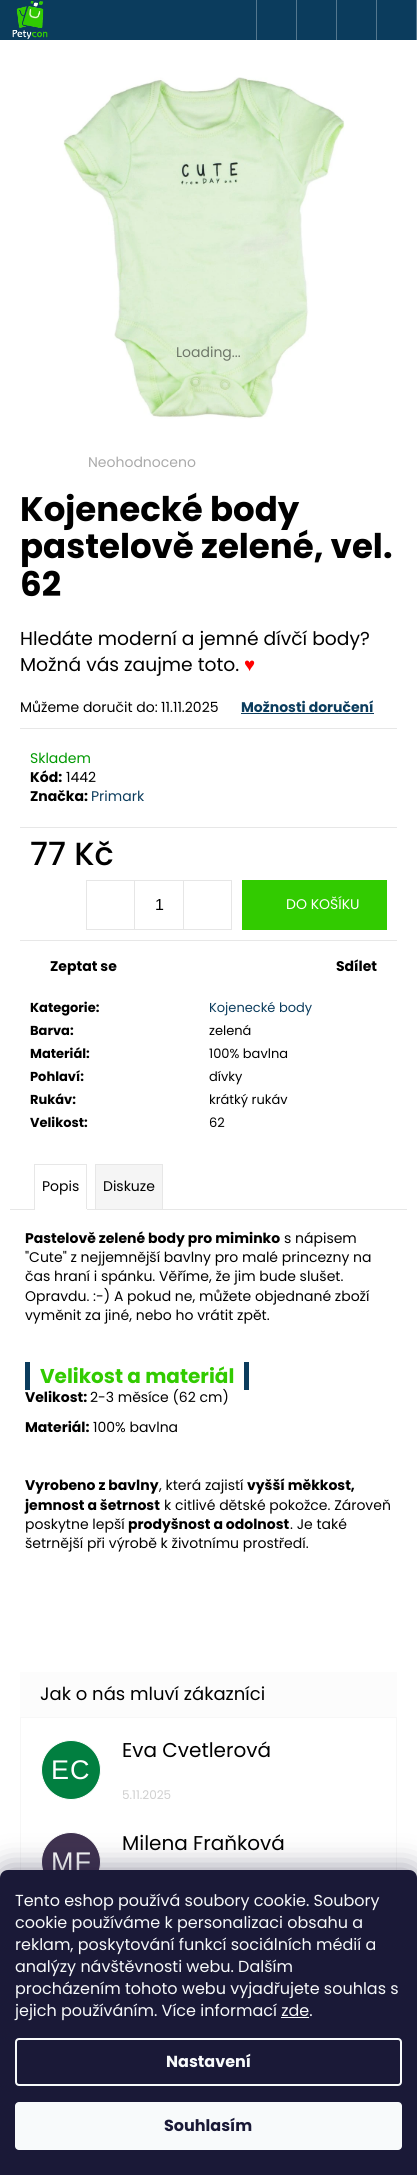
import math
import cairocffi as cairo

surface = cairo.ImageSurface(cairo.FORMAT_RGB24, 417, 2175)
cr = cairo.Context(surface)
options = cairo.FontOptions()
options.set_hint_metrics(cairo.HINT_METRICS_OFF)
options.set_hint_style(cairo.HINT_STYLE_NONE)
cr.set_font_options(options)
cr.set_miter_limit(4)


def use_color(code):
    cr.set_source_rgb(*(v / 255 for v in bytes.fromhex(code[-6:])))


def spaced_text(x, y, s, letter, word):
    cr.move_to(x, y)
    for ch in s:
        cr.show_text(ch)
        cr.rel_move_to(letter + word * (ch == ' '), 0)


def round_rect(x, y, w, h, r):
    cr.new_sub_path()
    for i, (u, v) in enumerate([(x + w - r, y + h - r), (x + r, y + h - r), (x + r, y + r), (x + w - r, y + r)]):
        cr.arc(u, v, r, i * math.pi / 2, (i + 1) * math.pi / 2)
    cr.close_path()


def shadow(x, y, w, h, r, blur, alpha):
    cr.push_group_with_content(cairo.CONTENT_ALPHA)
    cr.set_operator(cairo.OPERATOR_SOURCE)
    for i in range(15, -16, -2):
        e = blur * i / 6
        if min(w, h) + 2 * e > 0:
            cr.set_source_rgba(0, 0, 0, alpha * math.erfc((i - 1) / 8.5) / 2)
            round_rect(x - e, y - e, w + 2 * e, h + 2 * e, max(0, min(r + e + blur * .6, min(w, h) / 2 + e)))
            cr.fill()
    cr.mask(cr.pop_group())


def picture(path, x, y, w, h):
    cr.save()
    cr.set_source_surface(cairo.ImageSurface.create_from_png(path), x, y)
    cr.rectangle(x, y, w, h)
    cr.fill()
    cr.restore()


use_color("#0b3c5d")
cr.paint()
picture("img1.png", 12, 0, 36, 40)
use_color("#54778e")
cr.rectangle(416, 0, 1, 40)
cr.fill()
cr.rectangle(256, 0, 1, 40)
cr.fill()
cr.rectangle(296, 0, 1, 40)
cr.fill()
cr.rectangle(336, 0, 1, 40)
cr.fill()
cr.rectangle(376, 0, 1, 40)
cr.fill()
use_color("#ffffff")
cr.rectangle(0, 40, 417, 1838)
cr.fill()
picture("img2.png", 63, 77, 282, 342)
cr.select_font_face("Poppins")
cr.set_font_size(14)
use_color("#6e7769")
cr.move_to(176, 357)
cr.show_text("Loading...")
use_color("#aaaaaa")
cr.move_to(88, 467)
cr.show_text("Neohodnoceno")
cr.select_font_face("Poppins", cairo.FONT_SLANT_NORMAL, cairo.FONT_WEIGHT_BOLD)
cr.set_font_size(34)
use_color("#000000")
cr.move_to(20, 521)
cr.show_text("Kojenecké body")
cr.move_to(20, 558)
cr.show_text("pastelově zelené, vel.")
cr.move_to(20, 596)
cr.show_text("62")
cr.select_font_face("Poppins")
cr.set_font_size(18.7)
cr.move_to(20, 645)
cr.show_text("Hledáte moderní a jemné dívčí body?")
cr.move_to(20, 671)
cr.show_text("Možná vás zaujme toto.")
cr.select_font_face("Liberation Sans")
use_color("#ff0000")
cr.move_to(244, 671)
cr.show_text("♥")
cr.select_font_face("Poppins")
cr.set_font_size(14)
use_color("#000000")
cr.move_to(20, 712)
cr.show_text("Můžeme doručit do:")
cr.move_to(161, 712)
cr.show_text("11.11.2025")
cr.select_font_face("Poppins", cairo.FONT_SLANT_NORMAL, cairo.FONT_WEIGHT_BOLD)
use_color("#0b3c5d")
cr.move_to(241, 712)
cr.show_text("Možnosti doručení")
cr.rectangle(241, 713, 133, 1)
cr.fill()
use_color("#e7e7e7")
cr.rectangle(20, 728, 377, 1)
cr.fill()
cr.rectangle(20, 827, 377, 1)
cr.fill()
cr.select_font_face("Poppins")
use_color("#009901")
cr.move_to(30, 763)
cr.show_text("Skladem")
cr.select_font_face("Poppins", cairo.FONT_SLANT_NORMAL, cairo.FONT_WEIGHT_BOLD)
use_color("#000000")
cr.move_to(30, 782)
cr.show_text("Kód:")
cr.select_font_face("Poppins")
cr.move_to(66, 782)
cr.show_text("1442")
cr.select_font_face("Poppins", cairo.FONT_SLANT_NORMAL, cairo.FONT_WEIGHT_BOLD)
cr.move_to(30, 801)
cr.show_text("Značka:")
cr.select_font_face("Poppins")
use_color("#0b3c5d")
cr.move_to(91, 801)
cr.show_text("Primark")
use_color("#e7e7e7")
cr.rectangle(20, 940, 377, 1)
cr.fill()
cr.select_font_face("Poppins Medium")
cr.set_font_size(32)
use_color("#000000")
cr.move_to(30, 865)
cr.show_text("77 Kč")
cr.rectangle(86.5, 880.5, 145, 49)
use_color("#e6e6e6")
cr.set_line_width(1)
cr.stroke()
cr.rectangle(134, 881, 1, 48)
cr.fill()
cr.select_font_face("Liberation Sans")
cr.set_font_size(16)
use_color("#000000")
cr.move_to(155, 910)
cr.show_text("1")
use_color("#e6e6e6")
cr.rectangle(183, 881, 1, 48)
cr.fill()
use_color("#32cb00")
cr.rectangle(242, 880, 145, 50)
cr.fill()
cr.select_font_face("Poppins")
cr.set_font_size(14)
use_color("#ffffff")
cr.move_to(286, 909)
cr.show_text("DO KOŠÍKU")
cr.select_font_face("Poppins", cairo.FONT_SLANT_NORMAL, cairo.FONT_WEIGHT_BOLD)
use_color("#000000")
cr.move_to(50, 971)
cr.show_text("Zeptat se")
cr.move_to(336, 971)
cr.show_text("Sdílet")
cr.set_font_size(13)
cr.move_to(30, 1012)
cr.show_text("Kategorie:")
cr.select_font_face("Poppins")
use_color("#0b3c5d")
cr.move_to(209, 1012)
cr.show_text("Kojenecké body")
cr.select_font_face("Poppins", cairo.FONT_SLANT_NORMAL, cairo.FONT_WEIGHT_BOLD)
use_color("#000000")
cr.move_to(30, 1035)
cr.show_text("Barva:")
cr.select_font_face("Poppins")
cr.move_to(209, 1035)
cr.show_text("zelená")
cr.select_font_face("Poppins", cairo.FONT_SLANT_NORMAL, cairo.FONT_WEIGHT_BOLD)
cr.move_to(30, 1058)
cr.show_text("Materiál:")
cr.select_font_face("Poppins")
cr.move_to(209, 1058)
cr.show_text("100% bavlna")
cr.select_font_face("Poppins", cairo.FONT_SLANT_NORMAL, cairo.FONT_WEIGHT_BOLD)
cr.move_to(30, 1081)
cr.show_text("Pohlaví:")
cr.select_font_face("Poppins")
cr.move_to(209, 1081)
cr.show_text("dívky")
cr.select_font_face("Poppins", cairo.FONT_SLANT_NORMAL, cairo.FONT_WEIGHT_BOLD)
cr.move_to(30, 1104)
cr.show_text("Rukáv:")
cr.select_font_face("Poppins")
cr.move_to(209, 1104)
cr.show_text("krátký rukáv")
cr.select_font_face("Poppins", cairo.FONT_SLANT_NORMAL, cairo.FONT_WEIGHT_BOLD)
cr.move_to(30, 1127)
cr.show_text("Velikost:")
cr.select_font_face("Poppins")
cr.move_to(209, 1127)
cr.show_text("62")
use_color("#e7e7e7")
cr.rectangle(10, 1209, 397, 1)
cr.fill()
cr.rectangle(34, 1164, 53, 1)
cr.fill()
cr.rectangle(86, 1164, 1, 46)
cr.fill()
use_color("#ffffff")
cr.rectangle(34, 1209, 53, 1)
cr.fill()
use_color("#e7e7e7")
cr.rectangle(34, 1164, 1, 46)
cr.fill()
cr.set_font_size(14)
use_color("#000000")
cr.move_to(42, 1191)
cr.show_text("Popis")
use_color("#f5f5f5")
cr.rectangle(95.5, 1164.5, 67, 45)
cr.fill_preserve()
use_color("#e7e7e7")
cr.stroke()
use_color("#000000")
cr.move_to(103, 1191)
cr.show_text("Diskuze")
cr.select_font_face("Poppins", cairo.FONT_SLANT_NORMAL, cairo.FONT_WEIGHT_BOLD)
cr.move_to(25, 1243)
cr.show_text("Pastelově zelené body pro miminko")
cr.select_font_face("Poppins")
cr.move_to(284, 1243)
cr.show_text("s nápisem")
cr.move_to(25, 1262)
cr.show_text("\"Cute\" z nejjemnější bavlny pro malé princezny na")
cr.move_to(25, 1281)
cr.show_text("čas hraní i spánku. Věříme, že jim bude slušet.")
cr.move_to(25, 1301)
cr.show_text("Opravdu. :-) A pokud ne, můžete objednané zboží")
cr.move_to(25, 1320)
cr.show_text("vyměnit za jiné, nebo ho vrátit zpět.")
cr.select_font_face("Poppins", cairo.FONT_SLANT_NORMAL, cairo.FONT_WEIGHT_BOLD)
cr.set_font_size(20)
use_color("#32cb00")
cr.move_to(40, 1383)
cr.show_text("Velikost a materiál")
use_color("#0b3c5d")
cr.rectangle(244, 1362, 5, 28)
cr.fill()
cr.rectangle(25, 1362, 5, 28)
cr.fill()
cr.set_font_size(14)
use_color("#000000")
cr.move_to(25, 1402)
cr.show_text("Velikost:")
cr.select_font_face("Poppins")
cr.move_to(90, 1402)
cr.show_text("2-3 měsíce (62 cm)")
cr.select_font_face("Poppins", cairo.FONT_SLANT_NORMAL, cairo.FONT_WEIGHT_BOLD)
cr.move_to(25, 1432)
cr.show_text("Materiál:")
cr.select_font_face("Poppins")
cr.move_to(93, 1432)
cr.show_text("100% bavlna")
cr.select_font_face("Poppins", cairo.FONT_SLANT_NORMAL, cairo.FONT_WEIGHT_BOLD)
cr.move_to(25, 1490)
cr.show_text("Vyrobeno z bavlny")
cr.select_font_face("Poppins")
cr.move_to(159, 1490)
cr.show_text(", která zajistí")
cr.select_font_face("Poppins", cairo.FONT_SLANT_NORMAL, cairo.FONT_WEIGHT_BOLD)
cr.move_to(247, 1490)
cr.show_text("vyšší měkkost,")
cr.move_to(25, 1510)
cr.show_text("jemnost a šetrnost")
cr.select_font_face("Poppins")
cr.move_to(164, 1510)
cr.show_text("k citlivé dětské pokožce. Zároveň")
cr.move_to(25, 1529)
cr.show_text("poskytne lepší")
cr.select_font_face("Poppins", cairo.FONT_SLANT_NORMAL, cairo.FONT_WEIGHT_BOLD)
cr.move_to(128, 1529)
cr.show_text("prodyšnost a odolnost")
cr.select_font_face("Poppins")
cr.move_to(290, 1529)
cr.show_text(". Je také")
cr.move_to(25, 1548)
cr.show_text("šetrnější při výrobě k životnímu prostředí.")
use_color("#fcfcfc")
cr.rectangle(20, 1672, 377, 45)
cr.fill()
cr.set_font_size(18)
use_color("#000000")
cr.move_to(40, 1700)
cr.show_text("Jak o nás mluví zákazníci")
cr.rectangle(20.5, 1717.5, 376, 411)
use_color("#f7f7f7")
cr.stroke()
use_color("#017f40")
cr.arc(71, 1770, 29.5, 0, 2 * math.pi)
cr.fill_preserve()
use_color("#ffffff")
cr.stroke()
cr.select_font_face("Liberation Sans")
cr.set_font_size(27)
spaced_text(51, 1779, "EC", 1, 0)
cr.select_font_face("Poppins")
cr.set_font_size(20)
use_color("#000000")
cr.move_to(122, 1757)
cr.show_text("Eva Cvetlerová")
cr.set_font_size(12)
use_color("#cfcfcf")
cr.move_to(122, 1799)
cr.show_text("5.11.2025")
cr.set_font_size(20)
use_color("#000000")
cr.move_to(122, 1850)
cr.show_text("Milena Fraňková")
use_color("#3f3250")
cr.new_path()
cr.arc(71, 1862, 29.5, 0, 2 * math.pi)
cr.fill_preserve()
use_color("#ffffff")
cr.stroke()
cr.select_font_face("Liberation Sans")
cr.set_font_size(27)
spaced_text(51, 1871, "MF", 1, 0)
use_color("#1b1939")
shadow(0, 1870, 417, 305, 8, 15, 0.5)
use_color("#1a1937")
cr.new_path()
cr.move_to(8, 1870)
cr.line_to(409, 1870)
cr.curve_to(413.5, 1870, 417, 1873.5, 417, 1878)
cr.line_to(417, 2175)
cr.line_to(0, 2175)
cr.line_to(0, 1878)
cr.curve_to(0, 1873.5, 3.5, 1870, 8, 1870)
cr.close_path()
cr.fill()
cr.select_font_face("Poppins")
cr.set_font_size(16)
use_color("#f8fafb")
cr.move_to(15, 1906)
cr.show_text("Tento eshop používá soubory cookie. Soubory")
cr.move_to(15, 1928)
cr.show_text("cookie používáme k personalizaci obsahu a")
cr.move_to(15, 1950)
cr.show_text("reklam, poskytování funkcí sociálních médií a")
cr.move_to(15, 1972)
cr.show_text("analýzy návštěvnosti webu. Dalším")
cr.move_to(15, 1994)
cr.show_text("procházením tohoto webu vyjadřujete souhlas s")
cr.move_to(15, 2016)
cr.show_text("jejich používáním. Více informací zde.")
cr.rectangle(281, 2017, 28, 1)
cr.fill()
round_rect(16, 2039, 385, 46, 3)
cr.set_line_width(2)
cr.stroke()
cr.select_font_face("Poppins", cairo.FONT_SLANT_NORMAL, cairo.FONT_WEIGHT_BOLD)
cr.move_to(166, 2067)
cr.show_text("Nastavení")
round_rect(15, 2102, 387, 48, 4)
cr.fill()
use_color("#1a1937")
cr.move_to(164, 2131)
cr.show_text("Souhlasím")
surface.write_to_png("result.png")
